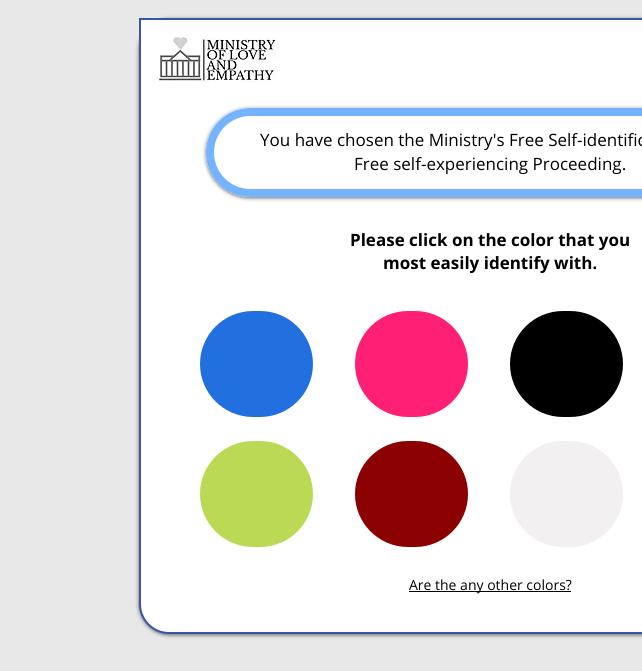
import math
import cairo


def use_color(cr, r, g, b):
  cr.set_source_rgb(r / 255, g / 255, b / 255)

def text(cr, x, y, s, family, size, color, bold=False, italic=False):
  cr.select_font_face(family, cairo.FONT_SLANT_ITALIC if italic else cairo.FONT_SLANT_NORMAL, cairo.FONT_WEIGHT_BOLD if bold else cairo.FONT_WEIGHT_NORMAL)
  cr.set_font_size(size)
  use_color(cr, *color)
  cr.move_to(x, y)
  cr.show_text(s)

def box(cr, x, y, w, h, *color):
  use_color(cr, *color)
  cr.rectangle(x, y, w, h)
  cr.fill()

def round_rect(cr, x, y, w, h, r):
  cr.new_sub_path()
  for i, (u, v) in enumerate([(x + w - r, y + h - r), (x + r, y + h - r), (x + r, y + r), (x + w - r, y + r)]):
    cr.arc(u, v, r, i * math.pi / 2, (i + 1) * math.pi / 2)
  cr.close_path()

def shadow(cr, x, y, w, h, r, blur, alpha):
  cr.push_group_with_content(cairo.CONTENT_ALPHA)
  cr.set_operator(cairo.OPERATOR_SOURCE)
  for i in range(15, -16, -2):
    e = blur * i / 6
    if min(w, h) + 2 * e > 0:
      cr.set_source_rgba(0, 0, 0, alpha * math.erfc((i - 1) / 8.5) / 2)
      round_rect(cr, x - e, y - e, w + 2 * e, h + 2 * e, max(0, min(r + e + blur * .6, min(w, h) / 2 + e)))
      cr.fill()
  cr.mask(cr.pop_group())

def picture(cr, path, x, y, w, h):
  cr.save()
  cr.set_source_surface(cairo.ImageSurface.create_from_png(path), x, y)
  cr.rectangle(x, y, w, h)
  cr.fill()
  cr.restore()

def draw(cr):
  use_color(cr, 232, 232, 232)
  cr.paint()
  use_color(cr, 0, 0, 0)
  shadow(cr, 139, 19, 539, 616, 30, 2, 0.6)
  use_color(cr, 255, 255, 255)
  cr.new_path()
  cr.move_to(140, 19)
  cr.line_to(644, 19)
  cr.curve_to(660, 19, 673, 32, 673, 48)
  cr.line_to(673, 633)
  cr.line_to(169, 633)
  cr.curve_to(153, 633, 140, 620, 140, 604)
  cr.close_path()
  cr.fill_preserve()
  use_color(cr, 55, 86, 171)
  cr.stroke()
  picture(cr, "img_01.png", 157, 34, 120, 48)
  cr.save()
  cr.set_fill_rule(cairo.FILL_RULE_EVEN_ODD)
  cr.new_path()
  cr.move_to(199, 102)
  cr.line_to(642, 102)
  cr.line_to(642, 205)
  cr.line_to(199, 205)
  cr.close_path()
  cr.move_to(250.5, 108)
  cr.line_to(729.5, 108)
  cr.curve_to(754, 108, 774, 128, 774, 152.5)
  cr.curve_to(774, 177, 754, 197, 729.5, 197)
  cr.line_to(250.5, 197)
  cr.curve_to(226, 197, 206, 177, 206, 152.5)
  cr.curve_to(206, 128, 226, 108, 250.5, 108)
  cr.close_path()
  cr.clip()
  use_color(cr, 0, 0, 0)
  shadow(cr, 206, 109, 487, 89, 44.5, 2, 0.6)
  cr.restore()
  cr.set_source_rgba(1, 1, 1, 0.74)
  round_rect(cr, 210, 112, 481, 81, 40.5)
  cr.fill_preserve()
  use_color(cr, 116, 180, 255)
  cr.set_line_width(8)
  cr.stroke()
  use_color(cr, 34, 112, 223)
  round_rect(cr, 200, 311, 113, 106, 53)
  cr.fill()
  use_color(cr, 255, 32, 118)
  round_rect(cr, 355, 311, 113, 106, 53)
  cr.fill()
  use_color(cr, 0, 0, 0)
  round_rect(cr, 510, 311, 113, 106, 53)
  cr.fill()
  use_color(cr, 186, 218, 85)
  round_rect(cr, 200, 441, 113, 106, 53)
  cr.fill()
  use_color(cr, 139, 0, 0)
  round_rect(cr, 355, 441, 113, 106, 53)
  cr.fill()
  use_color(cr, 242, 240, 240)
  round_rect(cr, 510, 441, 113, 106, 53)
  cr.fill()
  box(cr, 409, 591, 162, 1, 0, 0, 0)
  text(cr, 260, 146, "You have chosen the Ministry's Free Self-identific", "Open Sans", 17, (0, 0, 0))
  text(cr, 354, 170, "Free self-experiencing Proceeding.", "Open Sans", 17, (0, 0, 0))
  text(cr, 350, 246, "Please click on the color that you", "Open Sans", 17, (0, 0, 0), bold=True)
  text(cr, 383, 269, "most easily identify with.", "Open Sans", 17, (0, 0, 0), bold=True)
  text(cr, 409, 590, "Are the any other colors?", "Open Sans", 14, (0, 0, 0))


surface = cairo.ImageSurface(cairo.FORMAT_RGB24, 642, 671)
cr = cairo.Context(surface)
options = cairo.FontOptions()
options.set_hint_metrics(cairo.HINT_METRICS_OFF)
options.set_hint_style(cairo.HINT_STYLE_NONE)
cr.set_font_options(options)
cr.set_miter_limit(4)
draw(cr)
surface.write_to_png("out.png")
